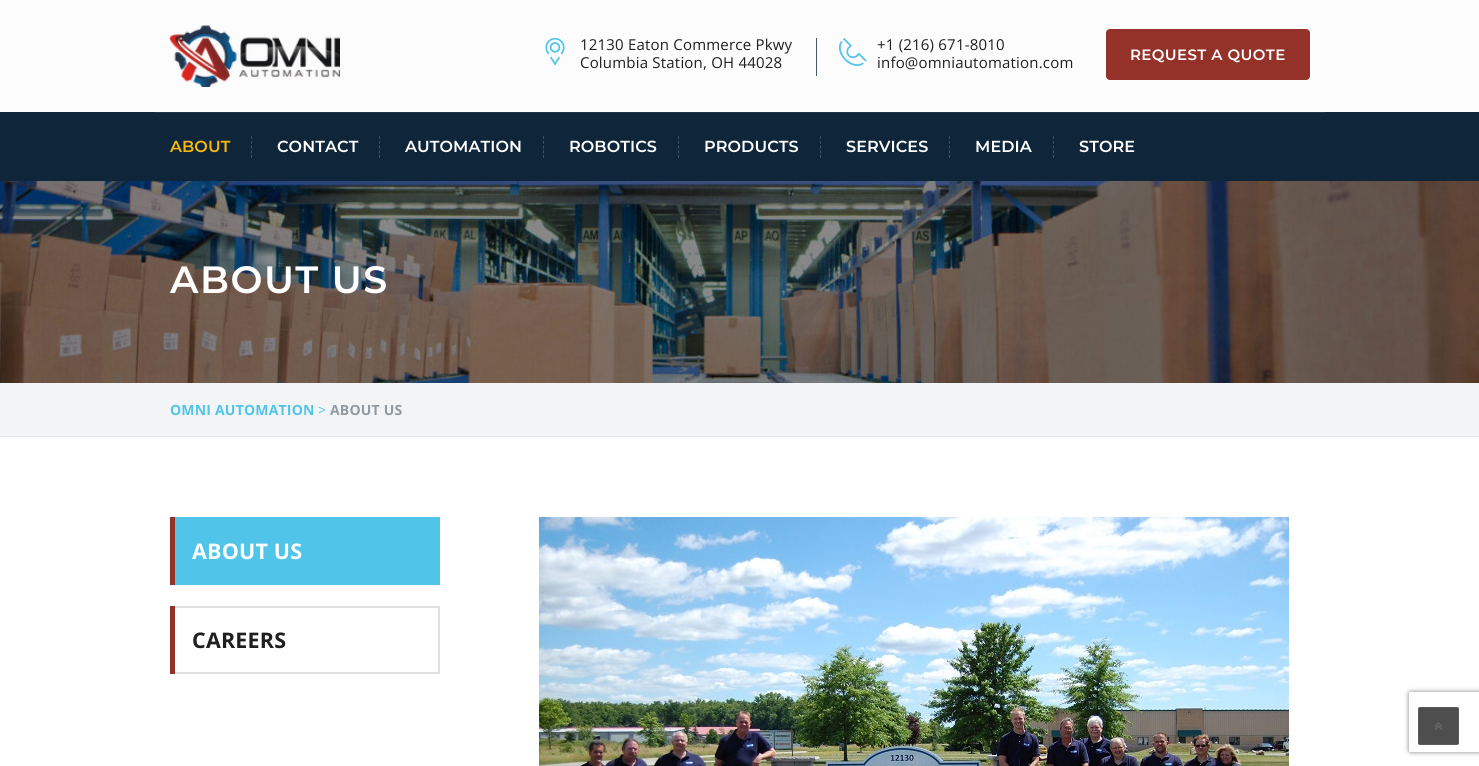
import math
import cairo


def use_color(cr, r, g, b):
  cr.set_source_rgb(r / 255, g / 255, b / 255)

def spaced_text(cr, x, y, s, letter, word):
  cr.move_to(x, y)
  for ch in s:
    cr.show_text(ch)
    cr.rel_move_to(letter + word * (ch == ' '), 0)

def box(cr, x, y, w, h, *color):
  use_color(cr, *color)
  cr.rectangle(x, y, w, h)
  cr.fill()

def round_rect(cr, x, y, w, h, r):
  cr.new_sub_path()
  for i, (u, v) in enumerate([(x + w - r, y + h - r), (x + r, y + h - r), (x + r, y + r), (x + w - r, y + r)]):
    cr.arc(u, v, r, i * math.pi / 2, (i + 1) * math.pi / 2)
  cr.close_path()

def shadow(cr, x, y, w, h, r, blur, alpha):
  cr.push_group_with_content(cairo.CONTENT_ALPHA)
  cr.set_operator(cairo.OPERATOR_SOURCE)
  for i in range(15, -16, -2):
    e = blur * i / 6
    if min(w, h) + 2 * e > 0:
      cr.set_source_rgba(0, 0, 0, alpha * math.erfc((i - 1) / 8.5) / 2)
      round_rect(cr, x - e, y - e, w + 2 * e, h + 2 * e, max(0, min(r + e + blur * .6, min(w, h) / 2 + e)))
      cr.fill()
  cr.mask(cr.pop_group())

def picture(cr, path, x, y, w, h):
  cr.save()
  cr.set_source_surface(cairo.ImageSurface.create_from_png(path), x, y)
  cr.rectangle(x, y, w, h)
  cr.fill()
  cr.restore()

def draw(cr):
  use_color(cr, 255, 255, 255)
  cr.paint()
  box(cr, 0, 0, 1479, 112, 252, 252, 252)
  picture(cr, "img_01.png", 170, 25, 170, 62)
  box(cr, 816, 38, 1, 38, 72, 86, 98)
  picture(cr, "img_02.png", 545, 38, 20, 28)
  picture(cr, "img_03.png", 839, 38, 28, 28)
  use_color(cr, 148, 49, 40)
  round_rect(cr, 1106.5, 29.5, 203, 50, 3.5)
  cr.fill_preserve()
  cr.set_line_width(1)
  cr.stroke()
  box(cr, 0, 112, 1479, 69, 15, 38, 58)
  box(cr, 155, 112, 1170, 1, 27, 54, 76)
  cr.new_path()
  cr.move_to(251.5, 136)
  cr.line_to(251.5, 158)
  use_color(cr, 63, 82, 98)
  cr.set_dash([3, 1.75])
  cr.stroke()
  cr.new_path()
  cr.move_to(379.5, 136)
  cr.line_to(379.5, 158)
  cr.stroke()
  cr.new_path()
  cr.move_to(543.5, 136)
  cr.line_to(543.5, 158)
  cr.stroke()
  cr.new_path()
  cr.move_to(678.5, 136)
  cr.line_to(678.5, 158)
  cr.stroke()
  cr.new_path()
  cr.move_to(820.5, 136)
  cr.line_to(820.5, 158)
  cr.stroke()
  cr.new_path()
  cr.move_to(949.5, 136)
  cr.line_to(949.5, 158)
  cr.stroke()
  cr.new_path()
  cr.move_to(1053.5, 136)
  cr.line_to(1053.5, 158)
  cr.stroke()
  picture(cr, "img_04.png", 0, 181, 1479, 202)
  box(cr, 0, 383, 1479, 53, 242, 244, 246)
  box(cr, 0, 436, 1479, 1, 230, 232, 233)
  box(cr, 175, 517, 265, 68, 81, 197, 233)
  box(cr, 170, 517, 5, 68, 148, 49, 40)
  cr.save()
  cr.rectangle(170, 517, 270, 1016)
  cr.clip()
  cr.rectangle(170, 607, 269, 66)
  use_color(cr, 224, 224, 224)
  cr.set_line_width(2)
  cr.set_dash([])
  cr.stroke()
  cr.restore()
  box(cr, 170, 606, 5, 68, 148, 49, 40)
  picture(cr, "img_05.png", 539, 517, 750, 249)
  cr.save()
  cr.set_fill_rule(cairo.FILL_RULE_EVEN_ODD)
  cr.new_path()
  cr.move_to(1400, 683)
  cr.line_to(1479, 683)
  cr.line_to(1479, 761)
  cr.line_to(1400, 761)
  cr.close_path()
  cr.move_to(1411, 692)
  cr.line_to(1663, 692)
  cr.curve_to(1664, 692, 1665, 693, 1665, 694)
  cr.line_to(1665, 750)
  cr.curve_to(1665, 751, 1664, 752, 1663, 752)
  cr.line_to(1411, 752)
  cr.curve_to(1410, 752, 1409, 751, 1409, 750)
  cr.line_to(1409, 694)
  cr.curve_to(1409, 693, 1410, 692, 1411, 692)
  cr.close_path()
  cr.clip()
  use_color(cr, 128, 128, 128)
  shadow(cr, 1409, 692, 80, 60, 2, 2.5, 1)
  cr.restore()
  use_color(cr, 78, 78, 78)
  round_rect(cr, 1418.5, 707.5, 40, 37, 1.5)
  cr.fill_preserve()
  use_color(cr, 92, 92, 92)
  cr.set_dash([])
  cr.stroke()
  picture(cr, "img_06.png", 1434, 722, 9, 8)
  cr.select_font_face("Open Sans")
  cr.set_font_size(15)
  use_color(cr, 31, 31, 31)
  spaced_text(cr, 580, 50, "12130 Eaton Commerce Pkwy", 0.2, 0)
  spaced_text(cr, 580, 68, "Columbia Station, OH 44028", 0.2, 0)
  spaced_text(cr, 877, 50, "+1 (216) 671-8010", 0.2, 0)
  spaced_text(cr, 877, 68, "info@omniautomation.com", 0.2, 0)
  cr.select_font_face("Montserrat SemiBold")
  use_color(cr, 255, 255, 255)
  spaced_text(cr, 1130, 60, "REQUEST A QUOTE", 0.4, 0)
  cr.set_font_size(16)
  use_color(cr, 250, 185, 10)
  spaced_text(cr, 170, 152, "ABOUT", 0.1, 0)
  use_color(cr, 255, 255, 255)
  spaced_text(cr, 277, 152, "CONTACT", 0.1, 0)
  spaced_text(cr, 405, 152, "AUTOMATION", 0.1, 0)
  spaced_text(cr, 569, 152, "ROBOTICS", 0.1, 0)
  spaced_text(cr, 704, 152, "PRODUCTS", 0.1, 0)
  spaced_text(cr, 846, 152, "SERVICES", 0.1, 0)
  spaced_text(cr, 975, 152, "MEDIA", 0.1, 0)
  spaced_text(cr, 1079, 152, "STORE", 0.1, 0)
  cr.set_font_size(38)
  spaced_text(cr, 170, 293, "ABOUT US", 1.5, 0)
  cr.select_font_face("Open Sans", cairo.FONT_SLANT_NORMAL, cairo.FONT_WEIGHT_BOLD)
  cr.set_font_size(14)
  use_color(cr, 81, 197, 233)
  spaced_text(cr, 170, 415, "OMNI AUTOMATION", 0.2, 0)
  cr.select_font_face("Open Sans")
  spaced_text(cr, 318, 415, ">", 0.2, 0)
  cr.select_font_face("Open Sans", cairo.FONT_SLANT_NORMAL, cairo.FONT_WEIGHT_BOLD)
  use_color(cr, 144, 154, 162)
  spaced_text(cr, 330, 415, "ABOUT US", 0.2, 0)
  cr.set_font_size(21.5)
  use_color(cr, 255, 255, 255)
  spaced_text(cr, 192, 559, "ABOUT US", 0.2, 0)
  use_color(cr, 31, 31, 31)
  spaced_text(cr, 192, 648, "CAREERS", 0.2, 0)


surface = cairo.ImageSurface(cairo.FORMAT_RGB24, 1479, 766)
cr = cairo.Context(surface)
options = cairo.FontOptions()
options.set_hint_metrics(cairo.HINT_METRICS_OFF)
options.set_hint_style(cairo.HINT_STYLE_NONE)
cr.set_font_options(options)
cr.set_miter_limit(4)
draw(cr)
surface.write_to_png("out.png")
